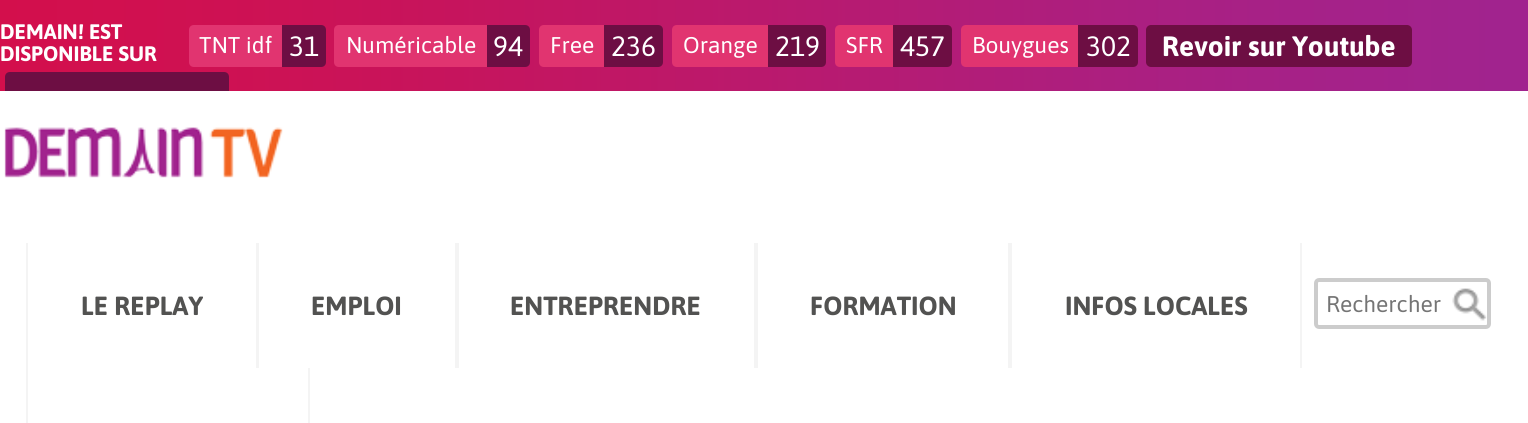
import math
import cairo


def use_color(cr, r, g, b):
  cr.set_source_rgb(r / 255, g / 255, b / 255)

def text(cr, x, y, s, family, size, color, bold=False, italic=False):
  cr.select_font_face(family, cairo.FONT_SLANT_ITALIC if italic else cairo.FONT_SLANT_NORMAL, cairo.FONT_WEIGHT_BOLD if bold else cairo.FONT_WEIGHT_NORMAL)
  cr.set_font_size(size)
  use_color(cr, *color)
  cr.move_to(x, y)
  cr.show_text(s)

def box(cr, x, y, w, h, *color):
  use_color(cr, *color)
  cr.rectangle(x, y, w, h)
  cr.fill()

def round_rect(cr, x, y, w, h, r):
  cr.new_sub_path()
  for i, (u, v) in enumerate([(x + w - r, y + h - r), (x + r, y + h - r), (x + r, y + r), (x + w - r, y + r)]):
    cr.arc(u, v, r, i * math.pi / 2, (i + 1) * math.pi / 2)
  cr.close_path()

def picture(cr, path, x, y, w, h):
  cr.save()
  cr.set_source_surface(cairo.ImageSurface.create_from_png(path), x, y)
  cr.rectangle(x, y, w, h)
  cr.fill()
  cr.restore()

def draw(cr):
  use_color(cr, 255, 255, 255)
  cr.paint()
  picture(cr, "img_01.png", 0, 0, 1528, 91)
  use_color(cr, 225, 52, 112)
  cr.new_path()
  cr.move_to(194, 25)
  cr.line_to(282, 25)
  cr.line_to(282, 67)
  cr.line_to(194, 67)
  cr.curve_to(191, 67, 189, 65, 189, 62)
  cr.line_to(189, 30)
  cr.curve_to(189, 27, 191, 25, 194, 25)
  cr.close_path()
  cr.fill()
  use_color(cr, 109, 14, 67)
  cr.new_path()
  cr.move_to(282, 25)
  cr.line_to(321, 25)
  cr.curve_to(324, 25, 326, 27, 326, 30)
  cr.line_to(326, 62)
  cr.curve_to(326, 65, 324, 67, 321, 67)
  cr.line_to(282, 67)
  cr.close_path()
  cr.fill()
  use_color(cr, 225, 52, 112)
  cr.new_path()
  cr.move_to(339, 25)
  cr.line_to(487, 25)
  cr.line_to(487, 67)
  cr.line_to(339, 67)
  cr.curve_to(336, 67, 334, 65, 334, 62)
  cr.line_to(334, 30)
  cr.curve_to(334, 27, 336, 25, 339, 25)
  cr.close_path()
  cr.fill()
  use_color(cr, 109, 14, 67)
  cr.new_path()
  cr.move_to(487, 25)
  cr.line_to(525, 25)
  cr.curve_to(528, 25, 530, 27, 530, 30)
  cr.line_to(530, 62)
  cr.curve_to(530, 65, 528, 67, 525, 67)
  cr.line_to(487, 67)
  cr.close_path()
  cr.fill()
  use_color(cr, 225, 52, 112)
  cr.new_path()
  cr.move_to(544, 25)
  cr.line_to(604, 25)
  cr.line_to(604, 67)
  cr.line_to(544, 67)
  cr.curve_to(541, 67, 539, 65, 539, 62)
  cr.line_to(539, 30)
  cr.curve_to(539, 27, 541, 25, 544, 25)
  cr.close_path()
  cr.fill()
  use_color(cr, 109, 14, 67)
  cr.new_path()
  cr.move_to(604, 25)
  cr.line_to(658, 25)
  cr.curve_to(661, 25, 663, 27, 663, 30)
  cr.line_to(663, 62)
  cr.curve_to(663, 65, 661, 67, 658, 67)
  cr.line_to(604, 67)
  cr.close_path()
  cr.fill()
  use_color(cr, 225, 52, 112)
  cr.new_path()
  cr.move_to(677, 25)
  cr.line_to(768, 25)
  cr.line_to(768, 67)
  cr.line_to(677, 67)
  cr.curve_to(674, 67, 672, 65, 672, 62)
  cr.line_to(672, 30)
  cr.curve_to(672, 27, 674, 25, 677, 25)
  cr.close_path()
  cr.fill()
  use_color(cr, 109, 14, 67)
  cr.new_path()
  cr.move_to(768, 25)
  cr.line_to(821, 25)
  cr.curve_to(824, 25, 826, 27, 826, 30)
  cr.line_to(826, 62)
  cr.curve_to(826, 65, 824, 67, 821, 67)
  cr.line_to(768, 67)
  cr.close_path()
  cr.fill()
  use_color(cr, 225, 52, 112)
  cr.new_path()
  cr.move_to(840, 25)
  cr.line_to(893, 25)
  cr.line_to(893, 67)
  cr.line_to(840, 67)
  cr.curve_to(837, 67, 835, 65, 835, 62)
  cr.line_to(835, 30)
  cr.curve_to(835, 27, 837, 25, 840, 25)
  cr.close_path()
  cr.fill()
  use_color(cr, 109, 14, 67)
  cr.new_path()
  cr.move_to(893, 25)
  cr.line_to(947, 25)
  cr.curve_to(950, 25, 952, 27, 952, 30)
  cr.line_to(952, 62)
  cr.curve_to(952, 65, 950, 67, 947, 67)
  cr.line_to(893, 67)
  cr.close_path()
  cr.fill()
  use_color(cr, 225, 52, 112)
  cr.new_path()
  cr.move_to(966, 25)
  cr.line_to(1078, 25)
  cr.line_to(1078, 67)
  cr.line_to(966, 67)
  cr.curve_to(963, 67, 961, 65, 961, 62)
  cr.line_to(961, 30)
  cr.curve_to(961, 27, 963, 25, 966, 25)
  cr.close_path()
  cr.fill()
  use_color(cr, 109, 14, 67)
  cr.new_path()
  cr.move_to(1078, 25)
  cr.line_to(1133, 25)
  cr.curve_to(1136, 25, 1138, 27, 1138, 30)
  cr.line_to(1138, 62)
  cr.curve_to(1138, 65, 1136, 67, 1133, 67)
  cr.line_to(1078, 67)
  cr.close_path()
  cr.fill()
  round_rect(cr, 1146, 25, 266, 42, 5)
  cr.fill()
  cr.new_path()
  cr.move_to(10, 72)
  cr.line_to(224, 72)
  cr.curve_to(227, 72, 229, 74, 229, 77)
  cr.line_to(229, 91)
  cr.line_to(5, 91)
  cr.line_to(5, 77)
  cr.curve_to(5, 74, 7, 72, 10, 72)
  cr.close_path()
  cr.fill()
  picture(cr, "img_02.png", 4, 127, 279, 51)
  box(cr, 256, 243, 3, 125, 244, 244, 244)
  box(cr, 26, 243, 2, 180, 244, 244, 244)
  box(cr, 455, 243, 4, 125, 244, 244, 244)
  box(cr, 754, 243, 4, 125, 244, 244, 244)
  box(cr, 1008, 243, 4, 125, 244, 244, 244)
  box(cr, 1300, 243, 2, 125, 244, 244, 244)
  box(cr, 308, 368, 2, 55, 244, 244, 244)
  picture(cr, "img_03.png", 1452, 288, 35, 33)
  round_rect(cr, 1316, 280, 173, 47, 3)
  use_color(cr, 204, 204, 204)
  cr.set_line_width(4)
  cr.stroke()
  text(cr, 0, 39, "DEMAIN! EST", "Asap", 21, (255, 255, 255), bold=True)
  text(cr, 0, 61, "DISPONIBLE SUR", "Asap", 21, (255, 255, 255), bold=True)
  text(cr, 199, 53, "TNT idf", "Asap", 22.75, (255, 255, 255))
  text(cr, 289, 56, "31", "Asap", 28, (255, 255, 255))
  text(cr, 346, 53, "Numéricable", "Asap", 22.75, (255, 255, 255))
  text(cr, 493, 56, "94", "Asap", 28, (255, 255, 255))
  text(cr, 550, 53, "Free", "Asap", 22.75, (255, 255, 255))
  text(cr, 611, 56, "236", "Asap", 28, (255, 255, 255))
  text(cr, 683, 53, "Orange", "Asap", 22.75, (255, 255, 255))
  text(cr, 775, 56, "219", "Asap", 28, (255, 255, 255))
  text(cr, 846, 53, "SFR", "Asap", 22.75, (255, 255, 255))
  text(cr, 900, 56, "457", "Asap", 28, (255, 255, 255))
  text(cr, 972, 53, "Bouygues", "Asap", 22.75, (255, 255, 255))
  text(cr, 1086, 56, "302", "Asap", 28, (255, 255, 255))
  text(cr, 1162, 56, "Revoir sur Youtube", "Asap", 28, (255, 255, 255), bold=True)
  text(cr, 81, 315, "LE REPLAY", "Asap", 26.25, (82, 82, 81), bold=True)
  text(cr, 311, 315, "EMPLOI", "Asap", 26.25, (82, 82, 81), bold=True)
  text(cr, 510, 315, "ENTREPRENDRE", "Asap", 26.25, (82, 82, 81), bold=True)
  text(cr, 810, 315, "FORMATION", "Asap", 26.25, (82, 82, 81), bold=True)
  text(cr, 1065, 315, "INFOS LOCALES", "Asap", 26.25, (82, 82, 81), bold=True)
  text(cr, 1326, 312, "Rechercher", "Asap", 22.75, (117, 117, 117))


surface = cairo.ImageSurface(cairo.FORMAT_RGB24, 1528, 423)
cr = cairo.Context(surface)
options = cairo.FontOptions()
options.set_hint_metrics(cairo.HINT_METRICS_OFF)
options.set_hint_style(cairo.HINT_STYLE_NONE)
cr.set_font_options(options)
cr.set_miter_limit(4)
draw(cr)
surface.write_to_png("out.png")
